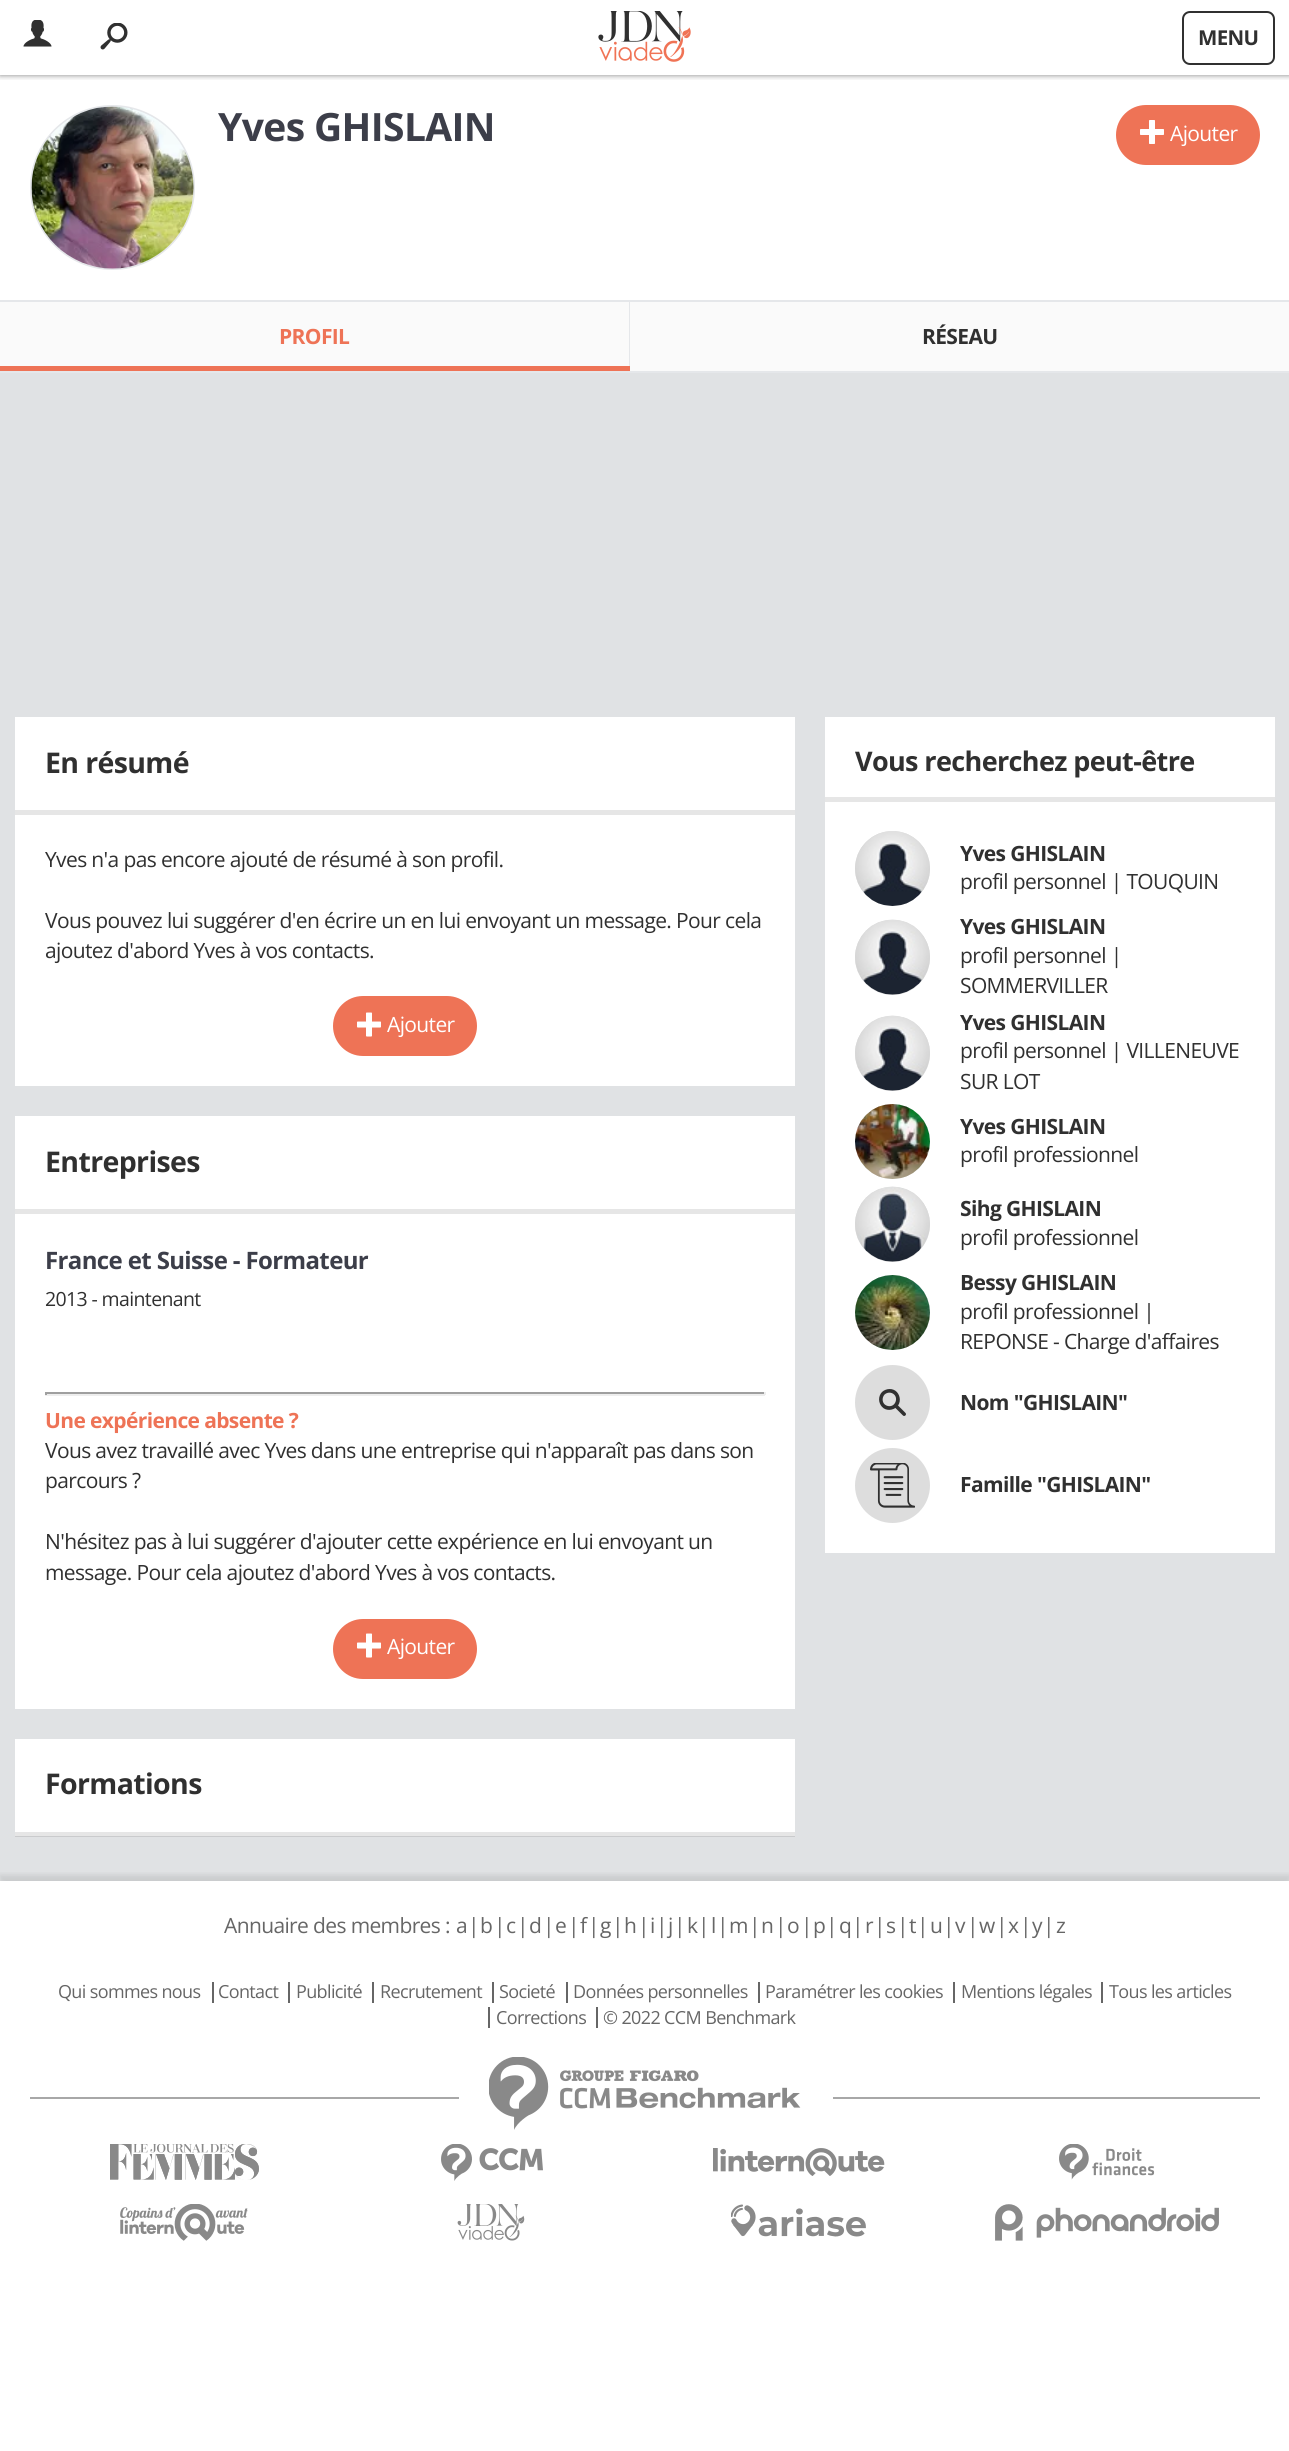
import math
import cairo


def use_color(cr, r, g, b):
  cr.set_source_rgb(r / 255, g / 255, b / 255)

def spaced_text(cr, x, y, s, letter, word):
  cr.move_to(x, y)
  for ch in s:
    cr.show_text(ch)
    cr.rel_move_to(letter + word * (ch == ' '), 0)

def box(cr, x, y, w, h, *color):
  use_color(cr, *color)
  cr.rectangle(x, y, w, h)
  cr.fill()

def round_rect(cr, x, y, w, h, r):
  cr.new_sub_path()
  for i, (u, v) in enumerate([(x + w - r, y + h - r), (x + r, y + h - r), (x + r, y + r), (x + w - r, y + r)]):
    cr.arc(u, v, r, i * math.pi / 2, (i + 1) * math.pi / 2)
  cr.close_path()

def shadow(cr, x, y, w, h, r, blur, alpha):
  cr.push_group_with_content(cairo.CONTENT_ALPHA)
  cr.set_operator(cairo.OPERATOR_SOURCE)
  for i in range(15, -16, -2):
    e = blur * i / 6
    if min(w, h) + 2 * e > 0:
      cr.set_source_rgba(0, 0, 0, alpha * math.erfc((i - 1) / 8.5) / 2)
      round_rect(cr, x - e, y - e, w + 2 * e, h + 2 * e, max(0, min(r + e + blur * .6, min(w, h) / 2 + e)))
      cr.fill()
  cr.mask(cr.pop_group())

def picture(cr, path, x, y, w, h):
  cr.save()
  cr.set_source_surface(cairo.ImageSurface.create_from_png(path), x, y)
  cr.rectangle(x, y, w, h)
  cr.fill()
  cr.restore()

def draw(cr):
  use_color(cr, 255, 255, 255)
  cr.paint()
  cr.save()
  cr.rectangle(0, 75, 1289, 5)
  cr.clip()
  use_color(cr, 0, 0, 0)
  shadow(cr, 0, 0, 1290, 75, 0, 3, 0.5)
  cr.restore()
  picture(cr, "img_01.png", 598, 11, 93, 51)
  picture(cr, "img_02.png", 23, 20, 29, 27)
  picture(cr, "img_03.png", 100, 23, 28, 27)
  round_rect(cr, 1183, 12, 91, 52, 7)
  use_color(cr, 48, 48, 48)
  cr.stroke()
  cr.arc(112.5, 187.5, 81.5, 0, 2 * math.pi)
  use_color(cr, 229, 231, 234)
  cr.stroke()
  picture(cr, "img_04.png", 31, 106, 163, 163)
  use_color(cr, 238, 115, 86)
  round_rect(cr, 1116, 105, 144, 60, 30)
  cr.fill()
  picture(cr, "img_05.png", 1140, 120, 24, 24)
  box(cr, 0, 300, 1289, 2, 229, 231, 234)
  box(cr, 0, 371, 1289, 2, 229, 231, 234)
  box(cr, 0, 302, 629, 64, 250, 250, 250)
  box(cr, 629, 302, 1, 69, 229, 231, 234)
  box(cr, 0, 366, 630, 5, 238, 115, 86)
  box(cr, 630, 302, 659, 69, 250, 250, 250)
  box(cr, 0, 373, 1289, 1508, 224, 226, 228)
  box(cr, 15, 1836, 780, 1, 202, 203, 205)
  box(cr, 15, 717, 780, 369, 255, 255, 255)
  box(cr, 15, 810, 780, 5, 230, 230, 230)
  use_color(cr, 238, 115, 86)
  round_rect(cr, 333, 996, 144, 60, 30)
  cr.fill()
  picture(cr, "img_06.png", 357, 1012, 24, 25)
  box(cr, 15, 1116, 780, 593, 255, 255, 255)
  box(cr, 15, 1209, 780, 5, 230, 230, 230)
  box(cr, 45, 1392, 720, 2, 159, 159, 159)
  box(cr, 764, 1392, 2, 3, 238, 238, 238)
  box(cr, 45, 1394, 720, 2, 238, 238, 238)
  box(cr, 45, 1392, 2, 3, 159, 159, 159)
  use_color(cr, 238, 115, 86)
  round_rect(cr, 333, 1619, 144, 60, 30)
  cr.fill()
  picture(cr, "img_06.png", 357, 1633, 24, 25)
  box(cr, 15, 1739, 780, 93, 255, 255, 255)
  box(cr, 15, 1832, 780, 4, 230, 230, 230)
  box(cr, 825, 717, 450, 836, 255, 255, 255)
  box(cr, 825, 797, 450, 5, 230, 230, 230)
  use_color(cr, 221, 221, 221)
  cr.arc(892.5, 868.5, 37.5, 0, 2 * math.pi)
  cr.fill()
  picture(cr, "img_07.png", 855, 831, 75, 75)
  cr.arc(892.5, 957.5, 37.5, 0, 2 * math.pi)
  cr.fill()
  picture(cr, "img_08.png", 855, 919, 75, 76)
  cr.arc(892.5, 1053.5, 37.5, 0, 2 * math.pi)
  cr.fill()
  picture(cr, "img_09.png", 855, 1015, 75, 76)
  cr.arc(892.5, 1141.5, 37.5, 0, 2 * math.pi)
  cr.fill()
  picture(cr, "img_10.png", 855, 1104, 75, 75)
  cr.arc(892.5, 1224.5, 37.5, 0, 2 * math.pi)
  cr.fill()
  picture(cr, "img_11.png", 855, 1186, 75, 76)
  cr.arc(892.5, 1312.5, 37.5, 0, 2 * math.pi)
  cr.fill()
  picture(cr, "img_12.png", 855, 1275, 75, 75)
  cr.arc(892.5, 1402.5, 37.5, 0, 2 * math.pi)
  cr.fill()
  picture(cr, "img_13.png", 879, 1389, 27, 27)
  cr.arc(892.5, 1485.5, 37.5, 0, 2 * math.pi)
  cr.fill()
  picture(cr, "img_14.png", 870, 1463, 45, 45)
  cr.save()
  cr.rectangle(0, 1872, 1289, 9)
  cr.clip()
  use_color(cr, 0, 0, 0)
  shadow(cr, 0, 1875, 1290, 68, 0, 3, 0.1)
  cr.restore()
  box(cr, 212, 1982, 2, 21, 102, 102, 102)
  box(cr, 288, 1982, 2, 21, 102, 102, 102)
  box(cr, 372, 1982, 2, 21, 102, 102, 102)
  box(cr, 492, 1982, 2, 21, 102, 102, 102)
  box(cr, 566, 1982, 2, 21, 102, 102, 102)
  box(cr, 758, 1982, 2, 21, 102, 102, 102)
  box(cr, 953, 1982, 2, 21, 102, 102, 102)
  box(cr, 1101, 1982, 2, 21, 102, 102, 102)
  box(cr, 488, 2007, 2, 21, 102, 102, 102)
  box(cr, 596, 2007, 2, 21, 102, 102, 102)
  box(cr, 30, 2097, 1230, 2, 168, 168, 168)
  box(cr, 459, 2097, 374, 2, 255, 255, 255)
  picture(cr, "img_15.png", 489, 2057, 312, 73)
  picture(cr, "img_16.png", 110, 2144, 149, 36)
  picture(cr, "img_17.png", 441, 2144, 102, 37)
  picture(cr, "img_18.png", 713, 2148, 172, 28)
  picture(cr, "img_19.png", 1059, 2144, 96, 36)
  picture(cr, "img_20.png", 120, 2204, 128, 37)
  picture(cr, "img_21.png", 457, 2204, 68, 37)
  picture(cr, "img_22.png", 731, 2204, 135, 33)
  picture(cr, "img_23.png", 995, 2204, 224, 37)
  cr.select_font_face("Open Sans", cairo.FONT_SLANT_NORMAL, cairo.FONT_WEIGHT_BOLD)
  cr.set_font_size(20.5)
  use_color(cr, 48, 48, 48)
  spaced_text(cr, 1198, 45, "MENU", -0.63, 0)
  cr.set_font_size(39)
  use_color(cr, 60, 62, 73)
  spaced_text(cr, 218, 141, "Yves GHISLAIN", -0.63, 0)
  cr.select_font_face("Open Sans")
  cr.set_font_size(21)
  use_color(cr, 255, 255, 255)
  spaced_text(cr, 1170, 141, "Ajouter", -0.63, 0)
  cr.select_font_face("Open Sans", cairo.FONT_SLANT_NORMAL, cairo.FONT_WEIGHT_BOLD)
  use_color(cr, 238, 115, 86)
  spaced_text(cr, 279, 344, "PROFIL", -0.63, 0)
  use_color(cr, 48, 48, 48)
  spaced_text(cr, 922, 344, "RÉSEAU", -0.63, 0)
  cr.set_font_size(28.5)
  spaced_text(cr, 45, 773, "En résumé", -0.63, 0)
  cr.select_font_face("Open Sans")
  cr.set_font_size(21)
  spaced_text(cr, 45, 867, "Yves n'a pas encore ajouté de résumé à son profil.", -0.63, 0)
  spaced_text(cr, 45, 928, "Vous pouvez lui suggérer d'en écrire un en lui envoyant un message. Pour cela", -0.63, 0)
  spaced_text(cr, 45, 958, "ajoutez d'abord Yves à vos contacts.", -0.63, 0)
  use_color(cr, 255, 255, 255)
  spaced_text(cr, 387, 1032, "Ajouter", -0.63, 0)
  cr.select_font_face("Open Sans", cairo.FONT_SLANT_NORMAL, cairo.FONT_WEIGHT_BOLD)
  cr.set_font_size(28.5)
  use_color(cr, 48, 48, 48)
  spaced_text(cr, 45, 1172, "Entreprises", -0.63, 0)
  cr.set_font_size(24)
  use_color(cr, 60, 62, 73)
  spaced_text(cr, 45, 1269, "France et Suisse - Formateur", -0.63, 0)
  cr.select_font_face("Open Sans")
  cr.set_font_size(19.5)
  use_color(cr, 48, 48, 48)
  spaced_text(cr, 45, 1306, "2013 - maintenant", -0.63, 0)
  cr.select_font_face("Open Sans", cairo.FONT_SLANT_NORMAL, cairo.FONT_WEIGHT_BOLD)
  cr.set_font_size(21)
  use_color(cr, 238, 115, 86)
  spaced_text(cr, 45, 1428, "Une expérience absente ?", -0.63, 0)
  cr.select_font_face("Open Sans")
  use_color(cr, 48, 48, 48)
  spaced_text(cr, 45, 1458, "Vous avez travaillé avec Yves dans une entreprise qui n'apparaît pas dans son", -0.63, 0)
  spaced_text(cr, 45, 1488, "parcours ?", -0.63, 0)
  spaced_text(cr, 45, 1549, "N'hésitez pas à lui suggérer d'ajouter cette expérience en lui envoyant un", -0.63, 0)
  spaced_text(cr, 45, 1580, "message. Pour cela ajoutez d'abord Yves à vos contacts.", -0.63, 0)
  use_color(cr, 255, 255, 255)
  spaced_text(cr, 387, 1654, "Ajouter", -0.63, 0)
  cr.select_font_face("Open Sans", cairo.FONT_SLANT_NORMAL, cairo.FONT_WEIGHT_BOLD)
  cr.set_font_size(28.5)
  use_color(cr, 48, 48, 48)
  spaced_text(cr, 45, 1794, "Formations", -0.63, 0)
  cr.set_font_size(27)
  spaced_text(cr, 855, 771, "Vous recherchez peut-être", -0.63, 0)
  cr.set_font_size(21)
  spaced_text(cr, 960, 861, "Yves GHISLAIN", -0.63, 0)
  cr.select_font_face("Open Sans")
  spaced_text(cr, 960, 889, "profil personnel | TOUQUIN", -0.63, 0)
  cr.select_font_face("Open Sans", cairo.FONT_SLANT_NORMAL, cairo.FONT_WEIGHT_BOLD)
  spaced_text(cr, 960, 934, "Yves GHISLAIN", -0.63, 0)
  cr.select_font_face("Open Sans")
  spaced_text(cr, 960, 963, "profil personnel |", -0.63, 0)
  spaced_text(cr, 960, 993, "SOMMERVILLER", -0.63, 0)
  cr.select_font_face("Open Sans", cairo.FONT_SLANT_NORMAL, cairo.FONT_WEIGHT_BOLD)
  spaced_text(cr, 960, 1030, "Yves GHISLAIN", -0.63, 0)
  cr.select_font_face("Open Sans")
  spaced_text(cr, 960, 1058, "profil personnel | VILLENEUVE", -0.63, 0)
  spaced_text(cr, 960, 1089, "SUR LOT", -0.63, 0)
  cr.select_font_face("Open Sans", cairo.FONT_SLANT_NORMAL, cairo.FONT_WEIGHT_BOLD)
  spaced_text(cr, 960, 1134, "Yves GHISLAIN", -0.63, 0)
  cr.select_font_face("Open Sans")
  spaced_text(cr, 960, 1162, "profil professionnel", -0.63, 0)
  cr.select_font_face("Open Sans", cairo.FONT_SLANT_NORMAL, cairo.FONT_WEIGHT_BOLD)
  spaced_text(cr, 960, 1216, "Sihg GHISLAIN", -0.63, 0)
  cr.select_font_face("Open Sans")
  spaced_text(cr, 960, 1245, "profil professionnel", -0.63, 0)
  cr.select_font_face("Open Sans", cairo.FONT_SLANT_NORMAL, cairo.FONT_WEIGHT_BOLD)
  spaced_text(cr, 960, 1290, "Bessy GHISLAIN", -0.63, 0)
  cr.select_font_face("Open Sans")
  spaced_text(cr, 960, 1319, "profil professionnel |", -0.63, 0)
  spaced_text(cr, 960, 1349, "REPONSE - Charge d'affaires", -0.63, 0)
  cr.select_font_face("Open Sans", cairo.FONT_SLANT_NORMAL, cairo.FONT_WEIGHT_BOLD)
  spaced_text(cr, 960, 1410, "Nom \"GHISLAIN\"", -0.63, 0)
  spaced_text(cr, 960, 1492, "Famille \"GHISLAIN\"", -0.63, 0)
  cr.select_font_face("Open Sans")
  use_color(cr, 102, 102, 102)
  spaced_text(cr, 224, 1933, "Annuaire des membres :", -0.63, 0)
  spaced_text(cr, 456, 1933, "a", -0.63, 0)
  spaced_text(cr, 468, 1933, "|", -0.63, 0)
  spaced_text(cr, 480, 1933, "b", -0.63, 0)
  spaced_text(cr, 494, 1933, "|", -0.63, 0)
  spaced_text(cr, 506, 1933, "c", -0.63, 0)
  spaced_text(cr, 517, 1933, "|", -0.63, 0)
  spaced_text(cr, 529, 1933, "d", -0.63, 0)
  spaced_text(cr, 543, 1933, "|", -0.63, 0)
  spaced_text(cr, 555, 1933, "e", -0.63, 0)
  spaced_text(cr, 568, 1933, "|", -0.63, 0)
  spaced_text(cr, 580, 1933, "f", -0.63, 0)
  spaced_text(cr, 588, 1933, "|", -0.63, 0)
  spaced_text(cr, 600, 1933, "g", -0.63, 0)
  spaced_text(cr, 612, 1933, "|", -0.63, 0)
  spaced_text(cr, 624, 1933, "h", -0.63, 0)
  spaced_text(cr, 638, 1933, "|", -0.63, 0)
  spaced_text(cr, 650, 1933, "i", -0.63, 0)
  spaced_text(cr, 656, 1933, "|", -0.63, 0)
  spaced_text(cr, 668, 1933, "j", -0.63, 0)
  spaced_text(cr, 674, 1933, "|", -0.63, 0)
  spaced_text(cr, 687, 1933, "k", -0.63, 0)
  spaced_text(cr, 698, 1933, "|", -0.63, 0)
  spaced_text(cr, 711, 1933, "l", -0.63, 0)
  spaced_text(cr, 717, 1933, "|", -0.63, 0)
  spaced_text(cr, 729, 1933, "m", -0.63, 0)
  spaced_text(cr, 749, 1933, "|", -0.63, 0)
  spaced_text(cr, 761, 1933, "n", -0.63, 0)
  spaced_text(cr, 775, 1933, "|", -0.63, 0)
  spaced_text(cr, 787, 1933, "o", -0.63, 0)
  spaced_text(cr, 801, 1933, "|", -0.63, 0)
  spaced_text(cr, 813, 1933, "p", -0.63, 0)
  spaced_text(cr, 826, 1933, "|", -0.63, 0)
  spaced_text(cr, 839, 1933, "q", -0.63, 0)
  spaced_text(cr, 852, 1933, "|", -0.63, 0)
  spaced_text(cr, 865, 1933, "r", -0.63, 0)
  spaced_text(cr, 874, 1933, "|", -0.63, 0)
  spaced_text(cr, 886, 1933, "s", -0.63, 0)
  spaced_text(cr, 897, 1933, "|", -0.63, 0)
  spaced_text(cr, 909, 1933, "t", -0.63, 0)
  spaced_text(cr, 917, 1933, "|", -0.63, 0)
  spaced_text(cr, 930, 1933, "u", -0.63, 0)
  spaced_text(cr, 943, 1933, "|", -0.63, 0)
  spaced_text(cr, 955, 1933, "v", -0.63, 0)
  spaced_text(cr, 967, 1933, "|", -0.63, 0)
  spaced_text(cr, 979, 1933, "w", -0.63, 0)
  spaced_text(cr, 996, 1933, "|", -0.63, 0)
  spaced_text(cr, 1008, 1933, "x", -0.63, 0)
  spaced_text(cr, 1020, 1933, "|", -0.63, 0)
  spaced_text(cr, 1032, 1933, "y", -0.63, 0)
  spaced_text(cr, 1043, 1933, "|", -0.63, 0)
  spaced_text(cr, 1056, 1933, "z", -0.63, 0)
  cr.set_font_size(18)
  spaced_text(cr, 58, 1998, "Qui sommes nous", -0.63, 0)
  spaced_text(cr, 218, 1998, "Contact", -0.63, 0)
  spaced_text(cr, 296, 1998, "Publicité", -0.63, 0)
  spaced_text(cr, 380, 1998, "Recrutement", -0.63, 0)
  spaced_text(cr, 499, 1998, "Societé", -0.63, 0)
  spaced_text(cr, 573, 1998, "Données personnelles", -0.63, 0)
  spaced_text(cr, 765, 1998, "Paramétrer les cookies", -0.63, 0)
  spaced_text(cr, 961, 1998, "Mentions légales", -0.63, 0)
  spaced_text(cr, 1109, 1998, "Tous les articles", -0.63, 0)
  spaced_text(cr, 496, 2024, "Corrections", -0.63, 0)
  spaced_text(cr, 603, 2024, "© 2022 CCM Benchmark", -0.63, 0)


surface = cairo.ImageSurface(cairo.FORMAT_RGB24, 1289, 2451)
cr = cairo.Context(surface)
options = cairo.FontOptions()
options.set_hint_metrics(cairo.HINT_METRICS_OFF)
options.set_hint_style(cairo.HINT_STYLE_NONE)
cr.set_font_options(options)
cr.set_miter_limit(4)
draw(cr)
surface.write_to_png("out.png")
